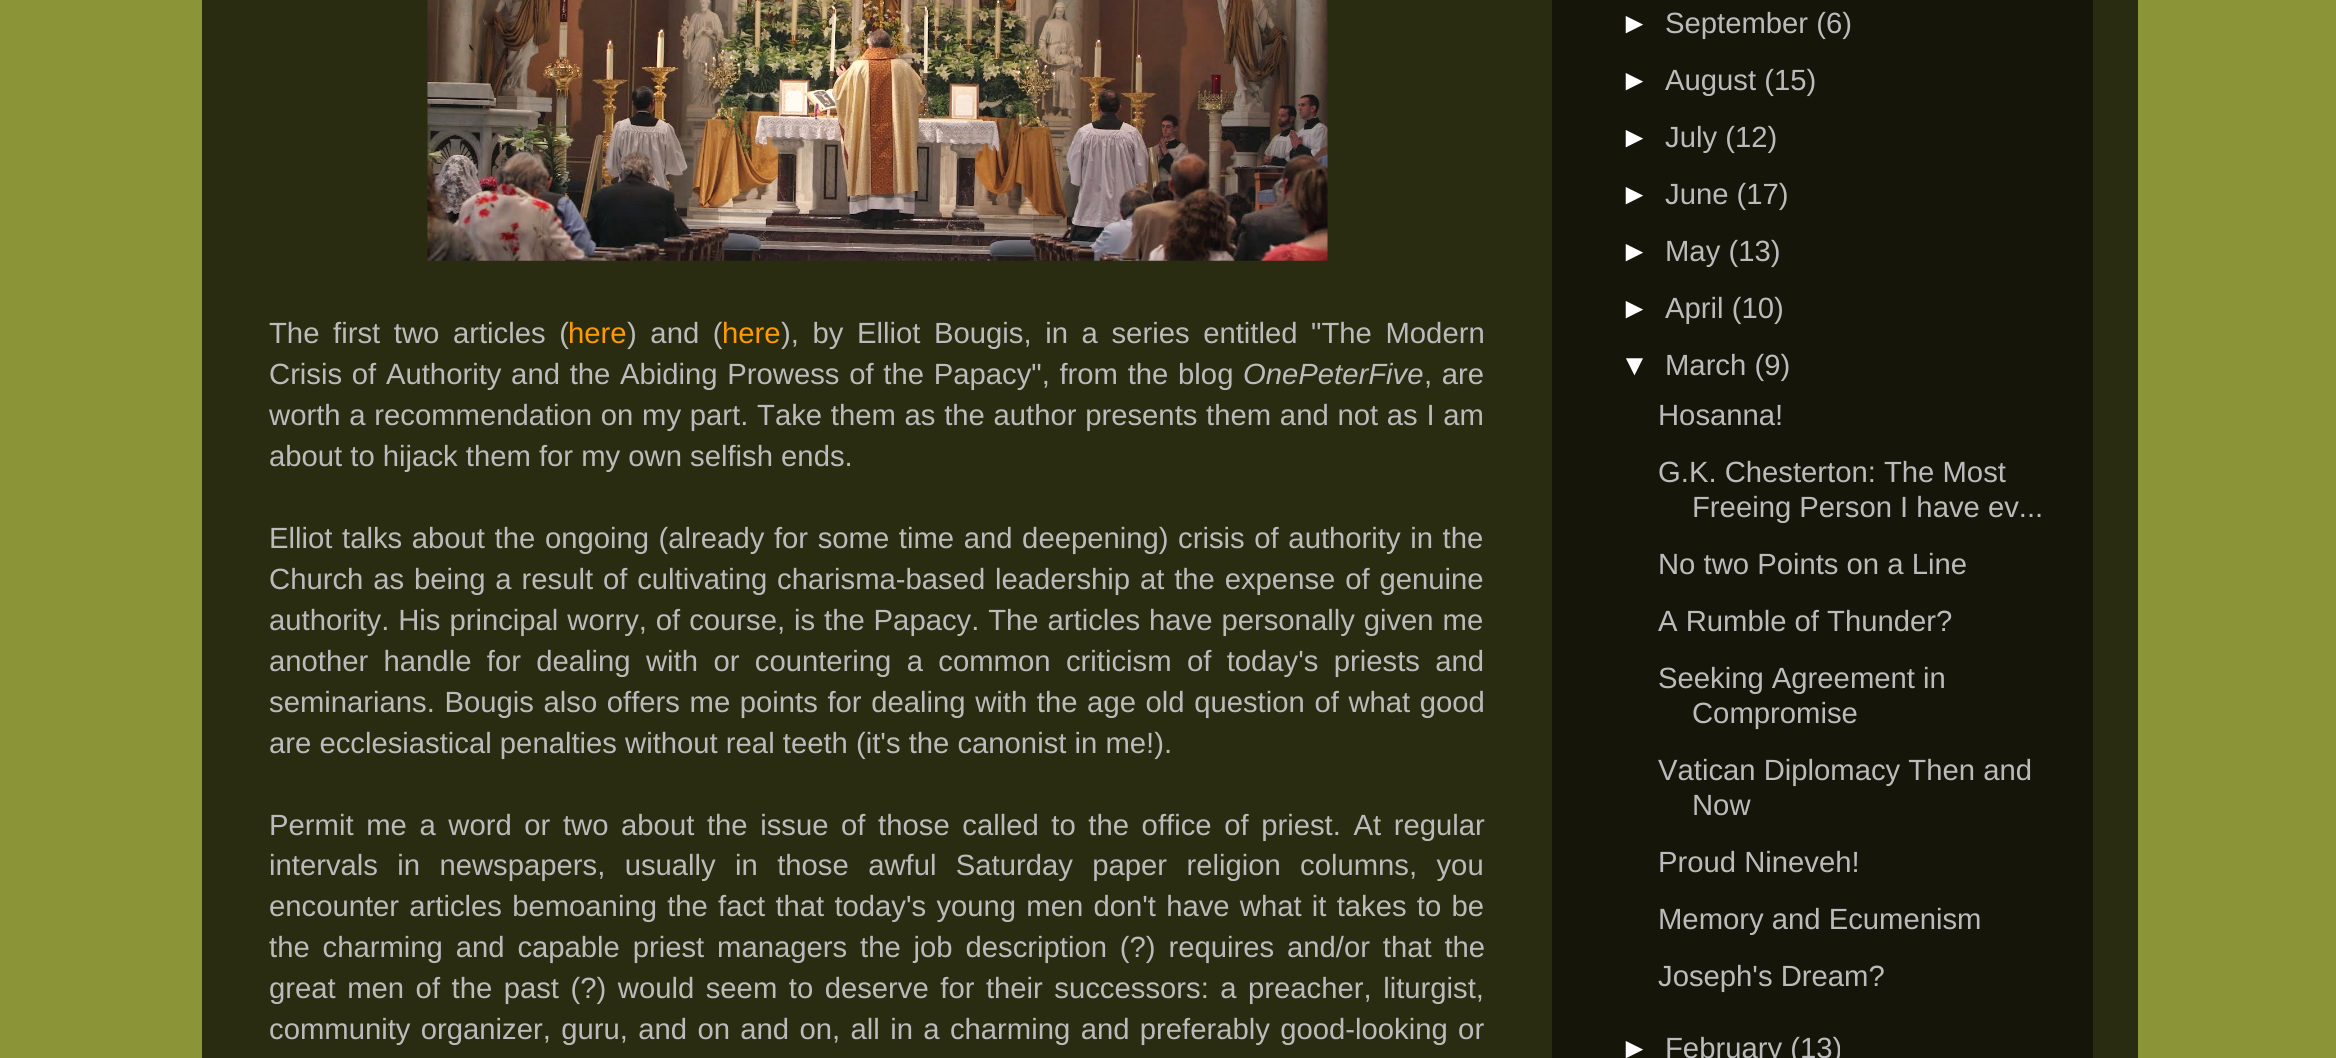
import math
import cairo


def use_color(cr, r, g, b):
  cr.set_source_rgb(r / 255, g / 255, b / 255)

def text(cr, x, y, s, family, size, color, bold=False, italic=False):
  cr.select_font_face(family, cairo.FONT_SLANT_ITALIC if italic else cairo.FONT_SLANT_NORMAL, cairo.FONT_WEIGHT_BOLD if bold else cairo.FONT_WEIGHT_NORMAL)
  cr.set_font_size(size)
  use_color(cr, *color)
  cr.move_to(x, y)
  cr.show_text(s)

def spaced_text(cr, x, y, s, letter, word):
  cr.move_to(x, y)
  for ch in s:
    cr.show_text(ch)
    cr.rel_move_to(letter + word * (ch == ' '), 0)

def box(cr, x, y, w, h, *color):
  use_color(cr, *color)
  cr.rectangle(x, y, w, h)
  cr.fill()

def picture(cr, path, x, y, w, h):
  cr.save()
  cr.set_source_surface(cairo.ImageSurface.create_from_png(path), x, y)
  cr.rectangle(x, y, w, h)
  cr.fill()
  cr.restore()

def draw(cr):
  use_color(cr, 139, 148, 55)
  cr.paint()
  box(cr, 202, 0, 1936, 1058, 42, 44, 17)
  box(cr, 1552, 0, 541, 1058, 21, 22, 9)
  picture(cr, "img_01.png", 427, 0, 901, 261)
  cr.select_font_face("Liberation Sans")
  cr.set_font_size(29.25)
  use_color(cr, 187, 187, 187)
  spaced_text(cr, 269, 343, "The first two articles (", 0, 5.5)
  text(cr, 568, 343, "here", "Liberation Sans", 29.25, (255, 155, 0))
  use_color(cr, 187, 187, 187)
  spaced_text(cr, 627, 343, ") and (", 0, 5.5)
  text(cr, 722, 343, "here", "Liberation Sans", 29.25, (255, 155, 0))
  use_color(cr, 187, 187, 187)
  spaced_text(cr, 781, 343, "), by Elliot Bougis, in a series entitled \"The Modern", 0, 5.5)
  spaced_text(cr, 269, 384, "Crisis of Authority and the Abiding Prowess of the Papacy\", from the blog", 0, 1.6)
  text(cr, 1243, 384, "OnePeterFive", "Liberation Sans", 29.25, (187, 187, 187), italic=True)
  cr.select_font_face("Liberation Sans")
  spaced_text(cr, 1424, 384, ", are", 0, 1.6)
  spaced_text(cr, 269, 425, "worth a recommendation on my part. Take them as the author presents them and not as I am", 0, 0.6)
  text(cr, 269, 466, "about to hijack them for my own selfish ends.", "Liberation Sans", 29.25, (187, 187, 187))
  spaced_text(cr, 269, 548, "Elliot talks about the ongoing (already for some time and deepening) crisis of authority in the", 0, 1.5)
  spaced_text(cr, 269, 589, "Church as being a result of cultivating charisma-based leadership at the expense of genuine", 0, 1.75)
  spaced_text(cr, 269, 630, "authority. His principal worry, of course, is the Papacy. The articles have personally given me", 0, 0.8)
  spaced_text(cr, 269, 671, "another handle for dealing with or countering a common criticism of today's priests and", 0, 7.25)
  spaced_text(cr, 269, 712, "seminarians. Bougis also offers me points for dealing with the age old question of what good", 0, 1.5)
  text(cr, 269, 753, "are ecclesiastical penalties without real teeth (it's the canonist in me!).", "Liberation Sans", 29.25, (187, 187, 187))
  spaced_text(cr, 269, 835, "Permit me a word or two about the issue of those called to the office of priest. At regular", 0, 4.5)
  spaced_text(cr, 269, 875, "intervals in newspapers, usually in those awful Saturday paper religion columns, you", 0, 11.25)
  spaced_text(cr, 269, 916, "encounter articles bemoaning the fact that today's young men don't have what it takes to be", 0, 2.1)
  spaced_text(cr, 269, 957, "the charming and capable priest managers the job description (?) requires and/or that the", 0, 4.75)
  spaced_text(cr, 269, 998, "great men of the past (?) would seem to deserve for their successors: a preacher, liturgist,", 0, 3.4)
  spaced_text(cr, 269, 1039, "community organizer, guru, and on and on, all in a charming and preferably good-looking or", 0, 2.25)
  text(cr, 1620, 33, "►", "Liberation Sans", 29.25, (255, 255, 255))
  text(cr, 1665, 33, "September (6)", "Liberation Sans", 29.25, (187, 187, 187))
  text(cr, 1620, 90, "►", "Liberation Sans", 29.25, (255, 255, 255))
  text(cr, 1665, 90, "August (15)", "Liberation Sans", 29.25, (187, 187, 187))
  text(cr, 1620, 147, "►", "Liberation Sans", 29.25, (255, 255, 255))
  text(cr, 1665, 147, "July (12)", "Liberation Sans", 29.25, (187, 187, 187))
  text(cr, 1620, 204, "►", "Liberation Sans", 29.25, (255, 255, 255))
  text(cr, 1665, 204, "June (17)", "Liberation Sans", 29.25, (187, 187, 187))
  text(cr, 1620, 261, "►", "Liberation Sans", 29.25, (255, 255, 255))
  text(cr, 1665, 261, "May (13)", "Liberation Sans", 29.25, (187, 187, 187))
  text(cr, 1620, 318, "►", "Liberation Sans", 29.25, (255, 255, 255))
  text(cr, 1665, 318, "April (10)", "Liberation Sans", 29.25, (187, 187, 187))
  text(cr, 1620, 375, "▼", "Liberation Sans", 29.25, (255, 255, 255))
  text(cr, 1665, 375, "March (9)", "Liberation Sans", 29.25, (187, 187, 187))
  text(cr, 1658, 425, "Hosanna!", "Liberation Sans", 29.25, (187, 187, 187))
  text(cr, 1658, 482, "G.K. Chesterton: The Most", "Liberation Sans", 29.25, (187, 187, 187))
  text(cr, 1692, 517, "Freeing Person I have ev...", "Liberation Sans", 29.25, (187, 187, 187))
  text(cr, 1658, 574, "No two Points on a Line", "Liberation Sans", 29.25, (187, 187, 187))
  text(cr, 1658, 631, "A Rumble of Thunder?", "Liberation Sans", 29.25, (187, 187, 187))
  text(cr, 1658, 688, "Seeking Agreement in", "Liberation Sans", 29.25, (187, 187, 187))
  text(cr, 1692, 723, "Compromise", "Liberation Sans", 29.25, (187, 187, 187))
  text(cr, 1658, 780, "Vatican Diplomacy Then and", "Liberation Sans", 29.25, (187, 187, 187))
  text(cr, 1692, 815, "Now", "Liberation Sans", 29.25, (187, 187, 187))
  text(cr, 1658, 872, "Proud Nineveh!", "Liberation Sans", 29.25, (187, 187, 187))
  text(cr, 1658, 929, "Memory and Ecumenism", "Liberation Sans", 29.25, (187, 187, 187))
  text(cr, 1658, 986, "Joseph's Dream?", "Liberation Sans", 29.25, (187, 187, 187))
  text(cr, 1620, 1058, "►", "Liberation Sans", 29.25, (255, 255, 255))
  text(cr, 1665, 1058, "February (13)", "Liberation Sans", 29.25, (187, 187, 187))


surface = cairo.ImageSurface(cairo.FORMAT_RGB24, 2336, 1058)
cr = cairo.Context(surface)
options = cairo.FontOptions()
options.set_hint_metrics(cairo.HINT_METRICS_OFF)
options.set_hint_style(cairo.HINT_STYLE_NONE)
cr.set_font_options(options)
cr.set_miter_limit(4)
draw(cr)
surface.write_to_png("out.png")
